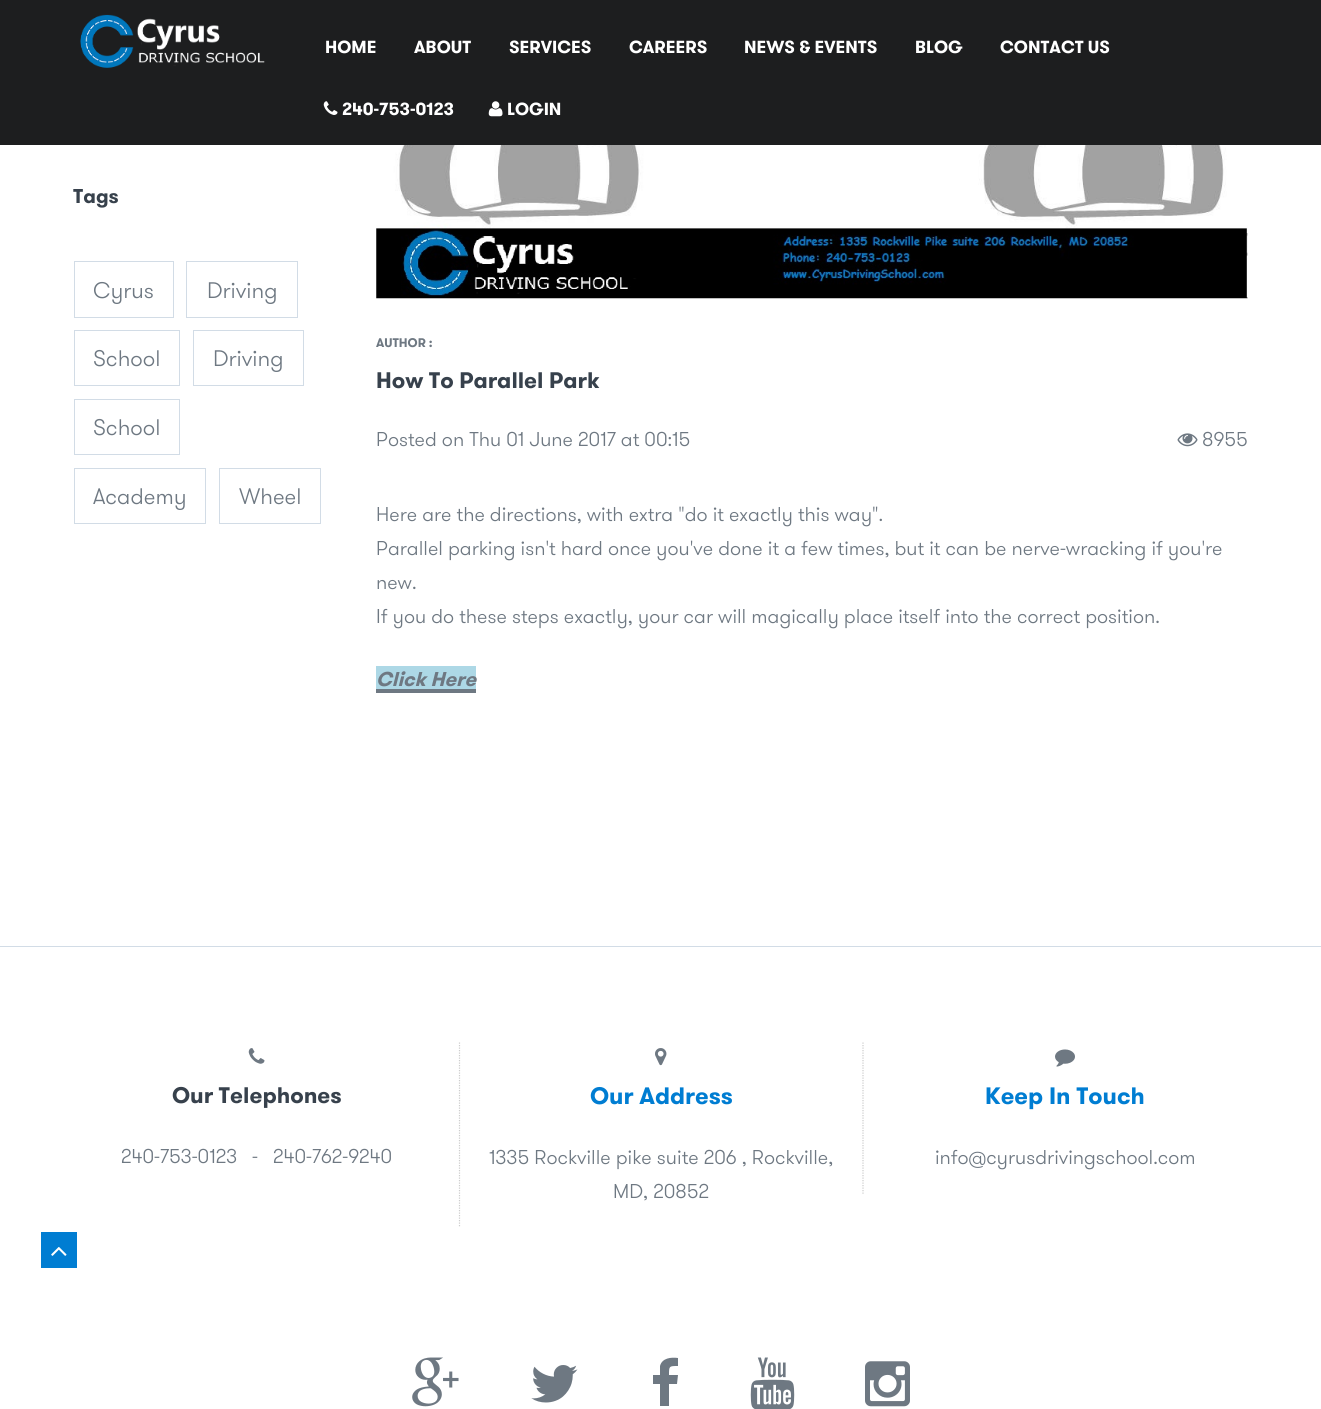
import math
import cairo


def use_color(cr, r, g, b):
  cr.set_source_rgb(r / 255, g / 255, b / 255)

def text(cr, x, y, s, family, size, color, bold=False, italic=False):
  cr.select_font_face(family, cairo.FONT_SLANT_ITALIC if italic else cairo.FONT_SLANT_NORMAL, cairo.FONT_WEIGHT_BOLD if bold else cairo.FONT_WEIGHT_NORMAL)
  cr.set_font_size(size)
  use_color(cr, *color)
  cr.move_to(x, y)
  cr.show_text(s)

def box(cr, x, y, w, h, *color):
  use_color(cr, *color)
  cr.rectangle(x, y, w, h)
  cr.fill()

def picture(cr, path, x, y, w, h):
  cr.save()
  cr.set_source_surface(cairo.ImageSurface.create_from_png(path), x, y)
  cr.rectangle(x, y, w, h)
  cr.fill()
  cr.restore()

def draw(cr):
  use_color(cr, 255, 255, 255)
  cr.paint()
  box(cr, 0, 0, 1321, 145, 29, 30, 31)
  picture(cr, "img_01.png", 80, 14, 185, 54)
  picture(cr, "img_02.png", 323, 101, 15, 14)
  picture(cr, "img_03.png", 488, 101, 15, 16)
  cr.rectangle(74.5, 261.5, 99, 56)
  use_color(cr, 210, 220, 230)
  cr.set_line_width(1)
  cr.stroke()
  cr.rectangle(186.5, 261.5, 111, 56)
  cr.stroke()
  cr.rectangle(74.5, 330.5, 105, 55)
  cr.stroke()
  cr.rectangle(193.5, 330.5, 110, 55)
  cr.stroke()
  cr.rectangle(74.5, 399.5, 105, 55)
  cr.stroke()
  cr.rectangle(74.5, 468.5, 131, 55)
  cr.stroke()
  cr.rectangle(219.5, 468.5, 101, 55)
  cr.stroke()
  picture(cr, "img_04.png", 376, 145, 872, 154)
  picture(cr, "img_05.png", 1177, 433, 21, 14)
  box(cr, 376, 666, 100, 23, 173, 216, 230)
  box(cr, 376, 689, 100, 4, 110, 120, 130)
  box(cr, 0, 946, 1321, 1, 210, 220, 230)
  picture(cr, "img_06.png", 248, 1048, 17, 16)
  cr.new_path()
  cr.move_to(459.5, 1042.5)
  cr.line_to(459.5, 1227.5)
  use_color(cr, 204, 204, 204)
  cr.set_line_width(1.2)
  cr.set_dash([1.25, 1.25])
  cr.stroke()
  picture(cr, "img_07.png", 655, 1048, 12, 18)
  cr.new_path()
  cr.move_to(863, 1042.5)
  cr.line_to(863, 1194)
  cr.stroke()
  picture(cr, "img_08.png", 1055, 1049, 20, 18)
  picture(cr, "img_09.png", 412, 1357, 47, 50)
  picture(cr, "img_10.png", 531, 1365, 47, 38)
  use_color(cr, 110, 120, 130)
  cr.new_path()
  cr.move_to(678, 1358)
  cr.line_to(678, 1366)
  cr.curve_to(669, 1366, 669, 1366, 669, 1375)
  cr.line_to(678, 1375)
  cr.line_to(677, 1384)
  cr.line_to(669, 1384)
  cr.line_to(669, 1406)
  cr.line_to(660, 1406)
  cr.line_to(660, 1384)
  cr.line_to(653, 1384)
  cr.line_to(653, 1375)
  cr.line_to(660, 1375)
  cr.line_to(660, 1366)
  cr.curve_to(662, 1358, 671, 1357, 678, 1358)
  cr.close_path()
  cr.fill()
  picture(cr, "img_11.png", 750, 1357, 45, 52)
  picture(cr, "img_12.png", 865, 1361, 45, 46)
  box(cr, 41, 1232, 36, 36, 0, 125, 210)
  picture(cr, "img_13.png", 51, 1247, 16, 9)
  text(cr, 325, 53, "HOME", "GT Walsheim", 17.5, (255, 255, 255), bold=True)
  text(cr, 414, 53, "ABOUT", "GT Walsheim", 17.5, (255, 255, 255), bold=True)
  text(cr, 509, 53, "SERVICES", "GT Walsheim", 17.5, (255, 255, 255), bold=True)
  text(cr, 629, 53, "CAREERS", "GT Walsheim", 17.5, (255, 255, 255), bold=True)
  text(cr, 744, 53, "NEWS & EVENTS", "GT Walsheim", 17.5, (255, 255, 255), bold=True)
  text(cr, 915, 53, "BLOG", "GT Walsheim", 17.5, (255, 255, 255), bold=True)
  text(cr, 1000, 53, "CONTACT US", "GT Walsheim", 17.5, (255, 255, 255), bold=True)
  text(cr, 342, 115, "240-753-0123", "GT Walsheim", 17.5, (255, 255, 255), bold=True)
  text(cr, 507, 115, "LOGIN", "GT Walsheim", 17.5, (255, 255, 255), bold=True)
  text(cr, 73, 203, "Tags", "GT Walsheim", 20, (55, 65, 76), bold=True)
  text(cr, 93, 298, "Cyrus", "GT Walsheim Light", 22.5, (110, 120, 130))
  text(cr, 207, 298, "Driving", "GT Walsheim Light", 22.5, (110, 120, 130))
  text(cr, 93, 366, "School", "GT Walsheim Light", 22.5, (110, 120, 130))
  text(cr, 213, 366, "Driving", "GT Walsheim Light", 22.5, (110, 120, 130))
  text(cr, 93, 435, "School", "GT Walsheim Light", 22.5, (110, 120, 130))
  text(cr, 93, 504, "Academy", "GT Walsheim Light", 22.5, (110, 120, 130))
  text(cr, 239, 504, "Wheel", "GT Walsheim Light", 22.5, (110, 120, 130))
  text(cr, 376, 347, "AUTHOR :", "GT Walsheim", 12.5, (110, 120, 130), bold=True)
  text(cr, 376, 388, "How To Parallel Park", "GT Walsheim", 22.5, (55, 65, 76), bold=True)
  text(cr, 376, 446, "Posted on Thu 01 June 2017 at 00:15", "GT Walsheim Light", 20, (110, 120, 130))
  text(cr, 1202, 446, "8955", "GT Walsheim Light", 20, (110, 120, 130))
  text(cr, 376, 521, "Here are the directions, with extra \"do it exactly this way\".", "GT Walsheim Light", 20, (110, 120, 130))
  text(cr, 376, 555, "Parallel parking isn't hard once you've done it a few times, but it can be nerve-wracking if you're", "GT Walsheim Light", 20, (110, 120, 130))
  text(cr, 376, 589, "new.", "GT Walsheim Light", 20, (110, 120, 130))
  text(cr, 376, 623, "If you do these steps exactly, your car will magically place itself into the correct position.", "GT Walsheim Light", 20, (110, 120, 130))
  text(cr, 376, 686, "Click Here", "GT Walsheim", 20, (110, 120, 130), bold=True, italic=True)
  text(cr, 172, 1103, "Our Telephones", "GT Walsheim", 22.5, (55, 65, 76), bold=True)
  text(cr, 121, 1163, "240-753-0123", "GT Walsheim Light", 20, (110, 120, 130))
  text(cr, 252, 1163, "-", "GT Walsheim Light", 20, (110, 120, 130))
  text(cr, 273, 1163, "240-762-9240", "GT Walsheim Light", 20, (110, 120, 130))
  text(cr, 590, 1104, "Our Address", "GT Walsheim", 23.75, (0, 125, 210), bold=True)
  text(cr, 489, 1164, "1335 Rockville pike suite 206 , Rockville,", "GT Walsheim Light", 20, (110, 120, 130))
  text(cr, 613, 1198, "MD, 20852", "GT Walsheim Light", 20, (110, 120, 130))
  text(cr, 985, 1104, "Keep In Touch", "GT Walsheim", 23.75, (0, 125, 210), bold=True)
  text(cr, 935, 1164, "info@cyrusdrivingschool.com", "GT Walsheim Light", 20, (110, 120, 130))


surface = cairo.ImageSurface(cairo.FORMAT_RGB24, 1321, 1409)
cr = cairo.Context(surface)
options = cairo.FontOptions()
options.set_hint_metrics(cairo.HINT_METRICS_OFF)
options.set_hint_style(cairo.HINT_STYLE_NONE)
cr.set_font_options(options)
cr.set_miter_limit(4)
draw(cr)
surface.write_to_png("out.png")
